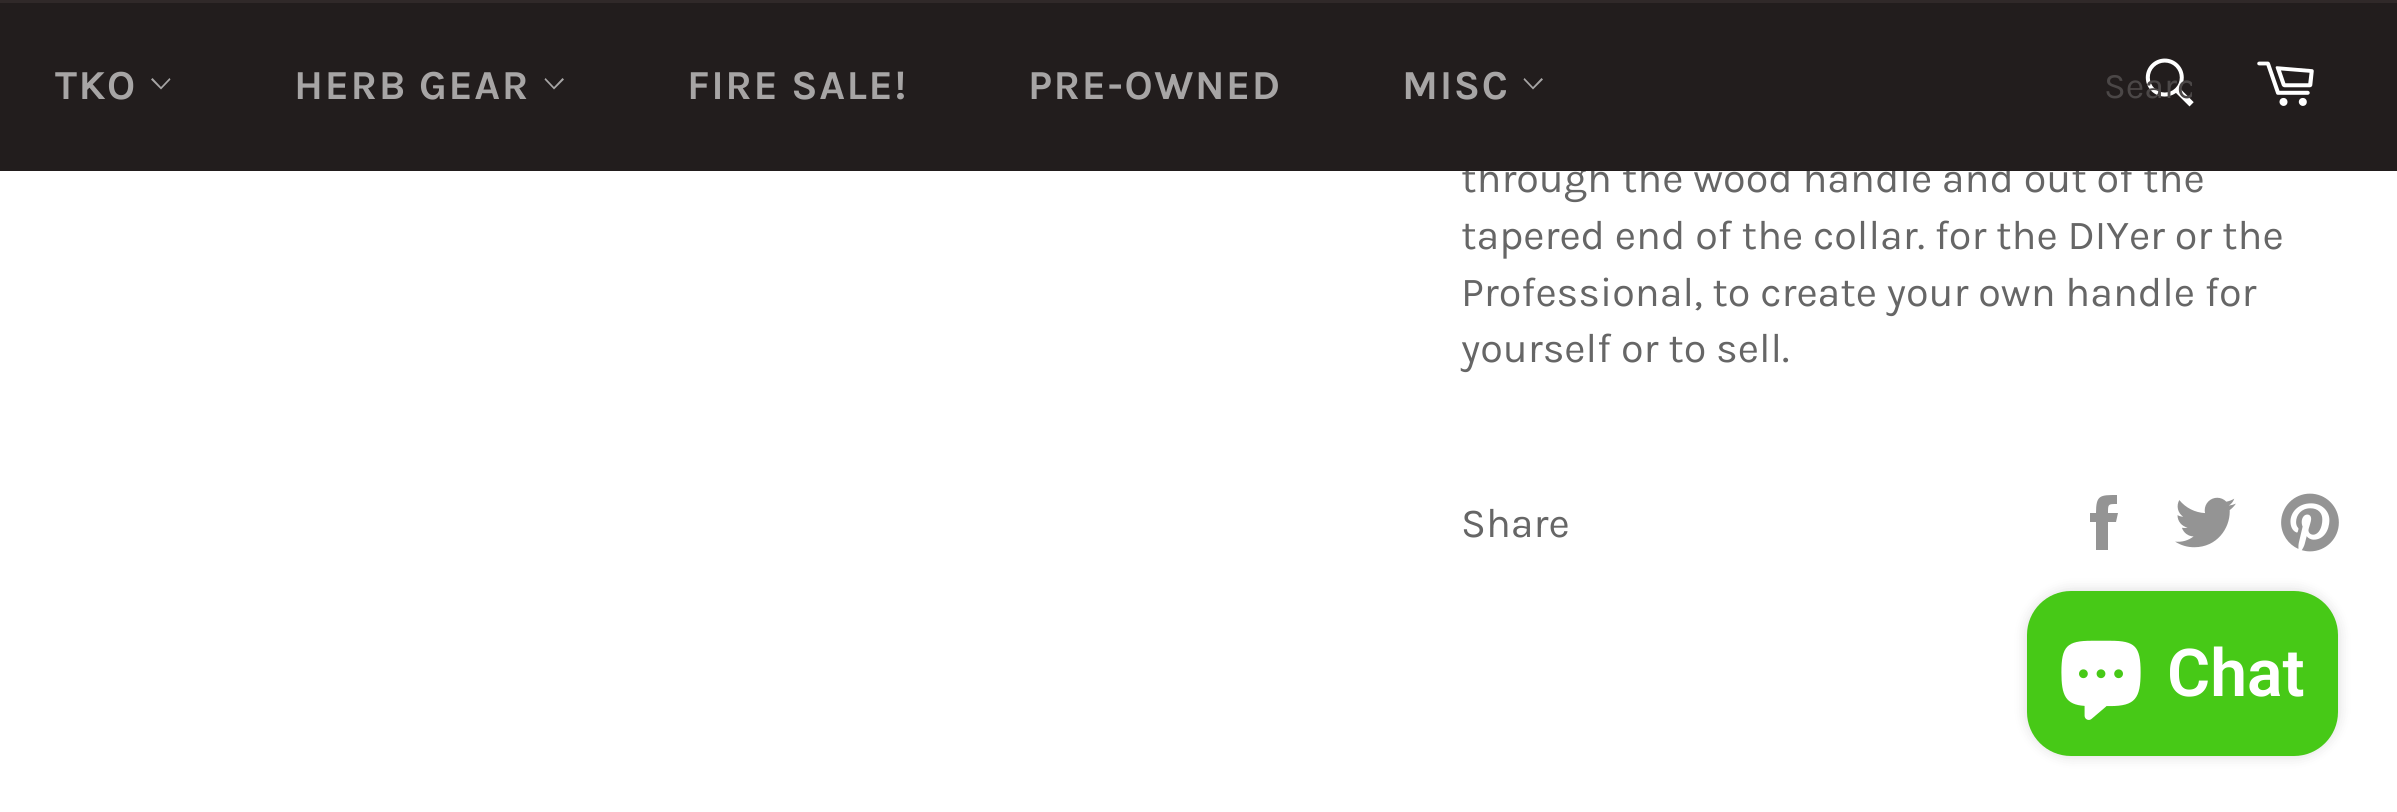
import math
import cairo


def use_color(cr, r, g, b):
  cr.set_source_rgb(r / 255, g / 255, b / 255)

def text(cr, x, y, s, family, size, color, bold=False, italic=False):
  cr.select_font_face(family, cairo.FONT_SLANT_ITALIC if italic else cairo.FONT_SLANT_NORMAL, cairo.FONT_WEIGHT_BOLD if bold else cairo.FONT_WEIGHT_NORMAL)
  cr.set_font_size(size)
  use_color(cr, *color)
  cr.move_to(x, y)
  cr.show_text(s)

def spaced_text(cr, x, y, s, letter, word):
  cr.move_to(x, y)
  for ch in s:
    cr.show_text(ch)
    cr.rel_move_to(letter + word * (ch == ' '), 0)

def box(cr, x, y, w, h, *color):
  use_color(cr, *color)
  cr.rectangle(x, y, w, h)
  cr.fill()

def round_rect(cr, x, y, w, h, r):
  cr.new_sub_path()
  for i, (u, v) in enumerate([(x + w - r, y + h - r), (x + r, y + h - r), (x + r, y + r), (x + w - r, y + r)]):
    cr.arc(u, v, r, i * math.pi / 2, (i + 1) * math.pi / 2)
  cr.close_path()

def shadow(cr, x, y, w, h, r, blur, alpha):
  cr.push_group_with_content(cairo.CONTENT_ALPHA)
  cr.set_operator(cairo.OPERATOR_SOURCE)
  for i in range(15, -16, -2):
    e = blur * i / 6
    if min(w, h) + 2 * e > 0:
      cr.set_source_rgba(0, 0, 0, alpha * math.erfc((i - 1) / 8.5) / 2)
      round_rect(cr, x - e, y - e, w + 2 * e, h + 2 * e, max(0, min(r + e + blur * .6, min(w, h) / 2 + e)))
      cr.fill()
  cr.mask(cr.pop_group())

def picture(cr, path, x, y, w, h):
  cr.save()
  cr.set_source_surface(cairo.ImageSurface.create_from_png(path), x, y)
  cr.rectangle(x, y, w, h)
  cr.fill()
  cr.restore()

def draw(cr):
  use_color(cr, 255, 255, 255)
  cr.paint()
  box(cr, 0, 0, 2397, 3, 48, 41, 41)
  use_color(cr, 148, 148, 148)
  cr.new_path()
  cr.move_to(2108, 513)
  cr.curve_to(2108, 504, 2108, 504, 2117, 504)
  cr.line_to(2117, 495)
  cr.curve_to(2100, 495, 2096, 495, 2096, 513)
  cr.line_to(2090, 513)
  cr.line_to(2090, 522)
  cr.line_to(2096, 522)
  cr.line_to(2096, 550)
  cr.line_to(2108, 550)
  cr.line_to(2108, 522)
  cr.line_to(2116, 522)
  cr.line_to(2118, 513)
  cr.close_path()
  cr.fill()
  picture(cr, "img_03.png", 2175, 497, 61, 51)
  picture(cr, "img_04.png", 2281, 493, 58, 59)
  use_color(cr, 0, 0, 0)
  shadow(cr, 2027, 591, 311, 165, 44, 7, 0.15)
  use_color(cr, 71, 201, 23)
  round_rect(cr, 2027, 591, 311, 165, 44)
  cr.fill()
  picture(cr, "img_05.png", 2061, 640, 80, 80)
  text(cr, 1461, 192, "through the wood handle and out of the", "Karla", 41.25, (102, 102, 102))
  box(cr, 0, 3, 2397, 168, 34, 29, 29)
  picture(cr, "img_01.png", 2145, 58, 49, 49)
  cr.save()
  cr.rectangle(2104, 66, 88, 41)
  cr.clip()
  text(cr, 2104, 98, "Searc", "Karla", 36, (75, 71, 71))
  cr.restore()
  picture(cr, "img_02.png", 2257, 61, 57, 45)
  use_color(cr, 167, 165, 165)
  cr.new_path()
  cr.move_to(1541.5, 78)
  cr.line_to(1543, 79.5)
  cr.line_to(1533, 89.5)
  cr.line_to(1523.5, 79.5)
  cr.line_to(1524.5, 78)
  cr.line_to(1533, 87)
  cr.close_path()
  cr.fill()
  cr.select_font_face("Karla", cairo.FONT_SLANT_NORMAL, cairo.FONT_WEIGHT_BOLD)
  spaced_text(cr, 1402, 99, "MISC", 1.6, 0)
  spaced_text(cr, 1028, 99, "PRE-OWNED", 1.6, 0)
  spaced_text(cr, 687, 99, "FIRE SALE!", 1.6, 0)
  cr.new_path()
  cr.move_to(562.5, 78)
  cr.line_to(564, 79.5)
  cr.line_to(554, 89.5)
  cr.line_to(544.5, 79.5)
  cr.line_to(545.5, 78)
  cr.line_to(554, 87)
  cr.close_path()
  cr.fill()
  spaced_text(cr, 294, 99, "HERB GEAR", 1.6, 0)
  cr.new_path()
  cr.move_to(169.5, 78)
  cr.line_to(170.5, 79.5)
  cr.line_to(161, 89.5)
  cr.line_to(151, 79.5)
  cr.line_to(152.5, 78)
  cr.line_to(161, 87)
  cr.close_path()
  cr.fill()
  spaced_text(cr, 55, 99, "TKO", 1.6, 0)
  text(cr, 1461, 249, "tapered end of the collar. for the DIYer or the", "Karla", 41.25, (102, 102, 102))
  text(cr, 1461, 306, "Professional, to create your own handle for", "Karla", 41.25, (102, 102, 102))
  text(cr, 1461, 362, "yourself or to sell.", "Karla", 41.25, (102, 102, 102))
  text(cr, 1461, 537, "Share", "Karla", 41.25, (102, 102, 102))
  text(cr, 2167, 696, "Chat", "Roboto SemiBold", 66, (255, 255, 255))


surface = cairo.ImageSurface(cairo.FORMAT_RGB24, 2397, 812)
cr = cairo.Context(surface)
options = cairo.FontOptions()
options.set_hint_metrics(cairo.HINT_METRICS_OFF)
options.set_hint_style(cairo.HINT_STYLE_NONE)
cr.set_font_options(options)
cr.set_miter_limit(4)
draw(cr)
surface.write_to_png("out.png")
